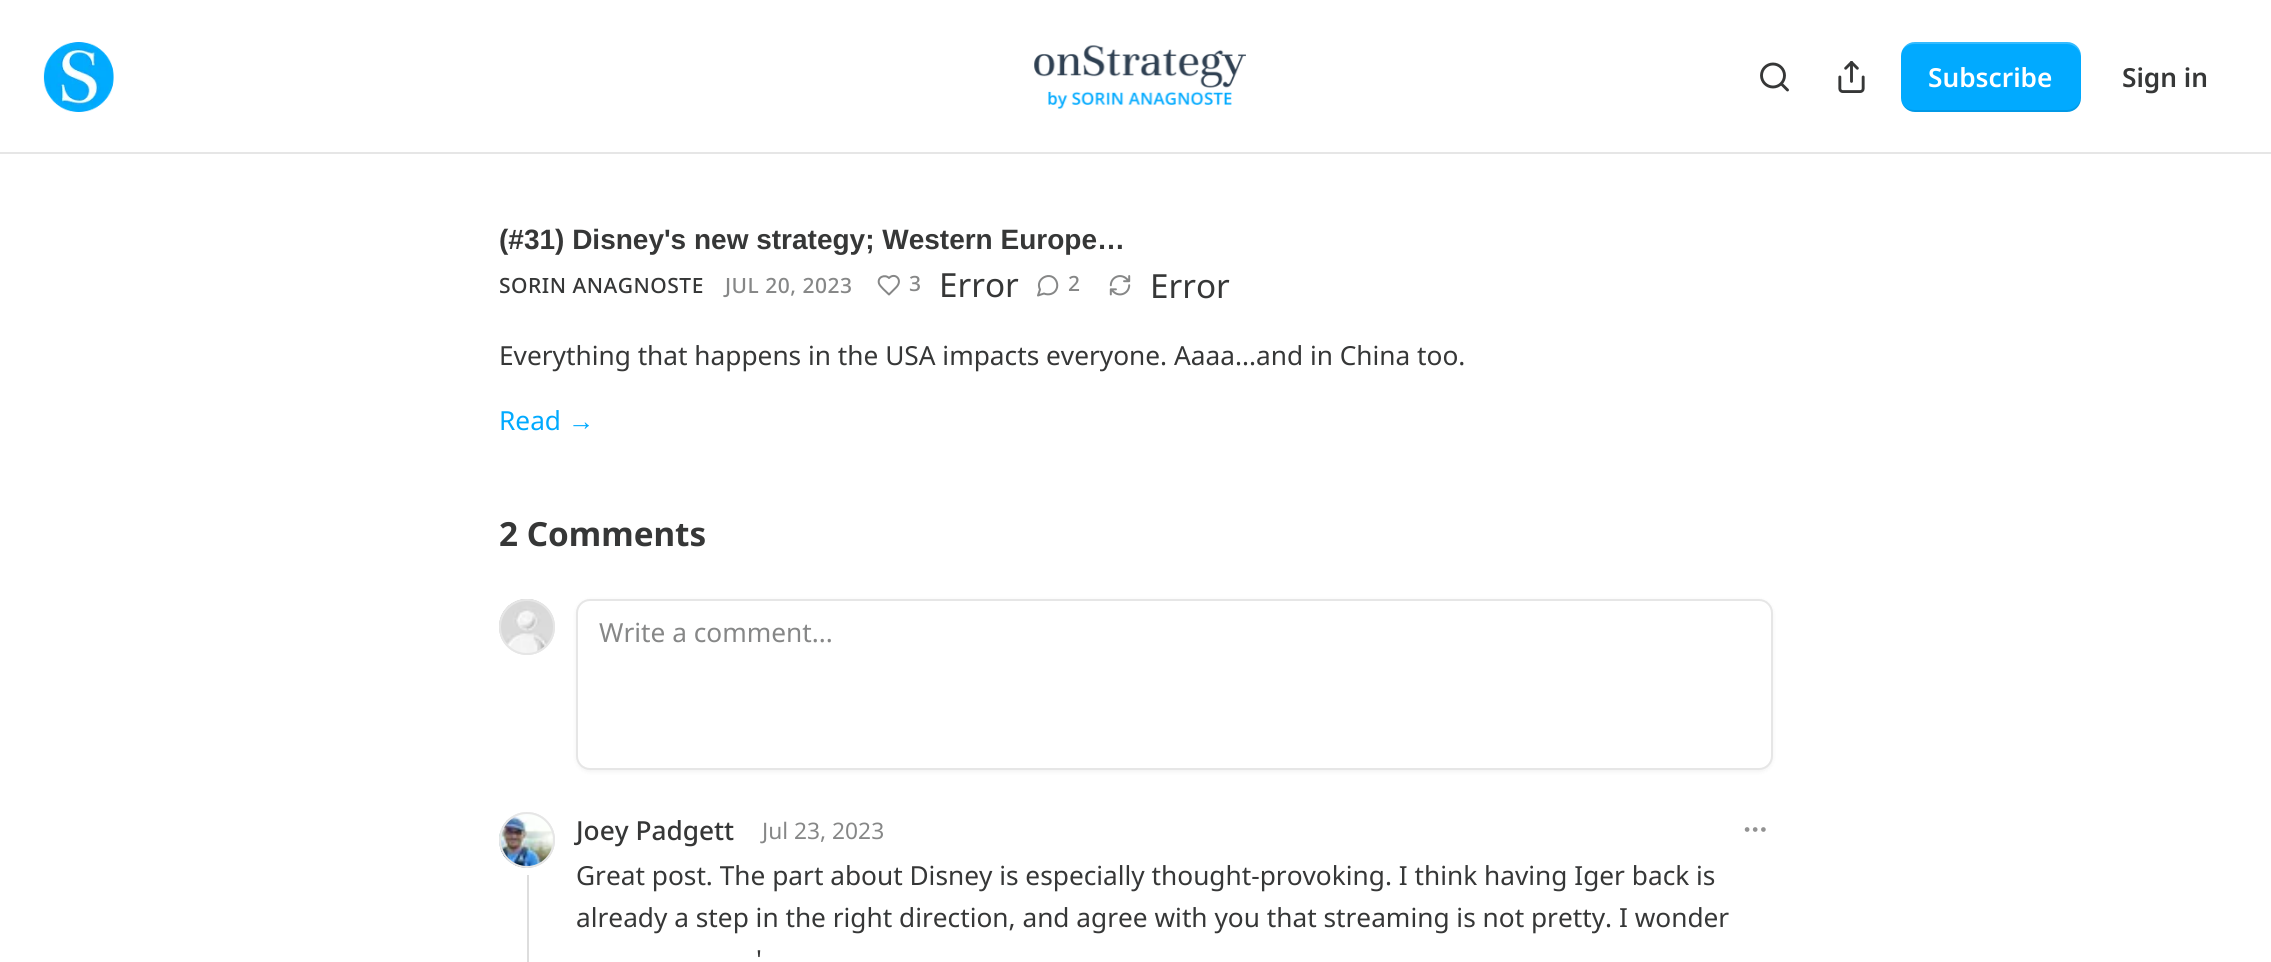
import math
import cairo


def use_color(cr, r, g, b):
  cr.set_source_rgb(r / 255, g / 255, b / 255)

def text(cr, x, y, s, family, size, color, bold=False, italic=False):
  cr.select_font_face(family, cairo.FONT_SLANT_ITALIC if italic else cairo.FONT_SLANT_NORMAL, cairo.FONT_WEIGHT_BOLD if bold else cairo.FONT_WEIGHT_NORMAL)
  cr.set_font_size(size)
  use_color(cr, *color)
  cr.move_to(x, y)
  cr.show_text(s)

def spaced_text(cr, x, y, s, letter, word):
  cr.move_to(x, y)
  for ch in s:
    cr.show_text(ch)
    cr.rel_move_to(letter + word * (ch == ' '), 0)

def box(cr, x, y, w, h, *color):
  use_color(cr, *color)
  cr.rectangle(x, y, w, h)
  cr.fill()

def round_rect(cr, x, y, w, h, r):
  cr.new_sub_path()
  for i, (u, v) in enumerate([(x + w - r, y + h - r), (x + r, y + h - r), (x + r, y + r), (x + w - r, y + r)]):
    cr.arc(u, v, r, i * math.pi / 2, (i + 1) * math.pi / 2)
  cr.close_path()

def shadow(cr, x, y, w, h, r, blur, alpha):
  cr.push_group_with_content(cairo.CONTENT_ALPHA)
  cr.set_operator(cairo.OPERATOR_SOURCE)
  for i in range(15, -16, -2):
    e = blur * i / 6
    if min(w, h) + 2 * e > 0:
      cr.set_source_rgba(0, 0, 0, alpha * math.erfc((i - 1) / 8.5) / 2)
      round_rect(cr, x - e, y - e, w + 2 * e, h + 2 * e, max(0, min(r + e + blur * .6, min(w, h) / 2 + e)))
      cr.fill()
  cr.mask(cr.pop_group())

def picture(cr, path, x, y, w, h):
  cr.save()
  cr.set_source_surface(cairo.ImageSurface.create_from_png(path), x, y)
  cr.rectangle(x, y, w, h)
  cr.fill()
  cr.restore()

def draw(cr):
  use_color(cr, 255, 255, 255)
  cr.paint()
  box(cr, 0, 152, 2271, 2, 230, 230, 230)
  picture(cr, "img_01.png", 43, 42, 71, 70)
  picture(cr, "img_02.png", 1034, 45, 212, 64)
  cr.arc(1773, 75.5, 11.5, 0, 2 * math.pi)
  use_color(cr, 54, 55, 55)
  cr.set_line_width(2.9)
  cr.stroke()
  cr.new_path()
  cr.move_to(1787.5, 90)
  cr.line_to(1781.5, 84)
  cr.set_line_cap(cairo.LINE_CAP_ROUND)
  cr.set_line_join(cairo.LINE_JOIN_ROUND)
  cr.stroke()
  picture(cr, "img_03.png", 1838, 61, 27, 32)
  use_color(cr, 1, 170, 255)
  round_rect(cr, 1901, 42, 180, 70, 14)
  cr.fill()
  cr.set_source_rgba(0, 0, 0, 0.1)
  cr.new_path()
  cr.move_to(1902, 103)
  cr.curve_to(1904, 108, 1909, 112, 1915, 112)
  cr.line_to(2067, 112)
  cr.curve_to(2075, 112, 2081, 106, 2081, 98)
  cr.line_to(2081, 96)
  cr.curve_to(2081, 104, 2074, 110, 2067, 110)
  cr.line_to(1914, 110)
  cr.curve_to(1909, 110, 1904, 107, 1902, 103)
  cr.close_path()
  cr.fill()
  cr.set_source_rgba(1, 1, 1, 0.2)
  cr.new_path()
  cr.move_to(1914, 44)
  cr.line_to(2067, 44)
  cr.curve_to(2074, 44, 2081, 50, 2081, 58)
  cr.line_to(2081, 56)
  cr.curve_to(2081, 48, 2075, 42, 2067, 42)
  cr.line_to(1915, 42)
  cr.curve_to(1909, 42, 1904, 46, 1902, 51)
  cr.curve_to(1904, 47, 1909, 44, 1914, 44)
  cr.close_path()
  cr.fill()
  cr.new_path()
  cr.move_to(896, 287.5)
  cr.curve_to(903.5, 280, 895, 272, 889, 278)
  cr.curve_to(885, 274, 877, 277, 879, 283.5)
  cr.curve_to(880, 286.5, 886.5, 292, 889, 294.5)
  cr.close_path()
  use_color(cr, 134, 135, 135)
  cr.set_line_width(2)
  cr.stroke()
  cr.new_path()
  cr.move_to(1044, 293.5)
  cr.curve_to(1048.5, 295.5, 1054.5, 294, 1056.5, 289)
  cr.curve_to(1057.5, 287, 1057.5, 284, 1056.5, 281.5)
  cr.curve_to(1051.5, 270, 1034.5, 278.5, 1040, 289.5)
  cr.line_to(1038, 295.5)
  cr.close_path()
  cr.stroke()
  picture(cr, "img_04.png", 1109, 275, 22, 21)
  cr.arc(527, 627, 27, 0, 2 * math.pi)
  use_color(cr, 230, 230, 230)
  cr.set_line_cap(cairo.LINE_CAP_BUTT)
  cr.set_line_join(cairo.LINE_JOIN_MITER)
  cr.stroke()
  picture(cr, "img_05.png", 499, 599, 56, 55)
  cr.arc(527, 627, 27, 0, 2 * math.pi)
  cr.stroke()
  use_color(cr, 0, 0, 0)
  shadow(cr, 576, 600, 1197, 172, 14, 2, 0.05)
  use_color(cr, 255, 255, 255)
  round_rect(cr, 577, 600, 1195, 169, 13)
  cr.fill_preserve()
  use_color(cr, 230, 230, 230)
  cr.stroke()
  box(cr, 527, 875, 2, 87, 221, 221, 221)
  cr.arc(527, 840, 27, 0, 2 * math.pi)
  use_color(cr, 230, 230, 230)
  cr.stroke()
  picture(cr, "img_06.png", 499, 812, 55, 56)
  cr.arc(527, 840, 27, 0, 2 * math.pi)
  cr.stroke()
  cr.arc(1755.2, 829.5, 1.2, 0, 2 * math.pi)
  use_color(cr, 146, 146, 146)
  cr.set_line_width(2.3)
  cr.stroke()
  cr.arc(1763.4, 829.5, 1.2, 0, 2 * math.pi)
  cr.stroke()
  cr.arc(1747.1, 829.5, 1.2, 0, 2 * math.pi)
  cr.stroke()
  text(cr, 1928, 87, "Subscribe", "Noto Sans SemiBold", 26.25, (255, 255, 255))
  text(cr, 2122, 87, "Sign in", "Noto Sans SemiBold", 26.25, (54, 55, 55))
  text(cr, 499, 249, "(#31) Disney's new strategy; Western Europe…", "Liberation Sans", 28, (54, 55, 55), bold=True)
  cr.select_font_face("Noto Sans Medium")
  cr.set_font_size(21)
  spaced_text(cr, 499, 293, "SORIN ANAGNOSTE", 0.5, 0)
  use_color(cr, 134, 135, 135)
  spaced_text(cr, 725, 293, "JUL 20, 2023", 0.5, 0)
  spaced_text(cr, 909, 291, "3", 0.5, 0)
  text(cr, 939, 297, "Error", "Noto Sans", 33.25, (54, 55, 55))
  cr.select_font_face("Noto Sans Medium")
  cr.set_font_size(21)
  use_color(cr, 134, 135, 135)
  spaced_text(cr, 1068, 291, "2", 0.5, 0)
  text(cr, 1150, 298, "Error", "Noto Sans", 33.25, (54, 55, 55))
  text(cr, 499, 365, "Everything that happens in the USA impacts everyone. Aaaa...and in China too.", "Noto Sans", 26.25, (54, 55, 55))
  text(cr, 499, 430, "Read", "Noto Sans", 26.25, (1, 170, 255))
  text(cr, 568, 430, "→", "Liberation Sans", 26.25, (1, 170, 255))
  text(cr, 499, 546, "2 Comments", "Noto Sans", 33.25, (54, 55, 55), bold=True)
  text(cr, 599, 642, "Write a comment...", "Noto Sans", 26.25, (134, 135, 135))
  text(cr, 576, 840, "Joey Padgett", "Noto Sans Medium", 26.25, (54, 55, 55))
  text(cr, 762, 839, "Jul 23, 2023", "Noto Sans", 22.75, (134, 135, 135))
  text(cr, 576, 885, "Great post. The part about Disney is especially thought-provoking. I think having Iger back is", "Noto Sans", 26.25, (54, 55, 55))
  text(cr, 576, 927, "already a step in the right direction, and agree with you that streaming is not pretty. I wonder", "Noto Sans", 26.25, (54, 55, 55))
  text(cr, 756, 969, "'", "Noto Sans", 26.25, (54, 55, 55))


surface = cairo.ImageSurface(cairo.FORMAT_RGB24, 2271, 962)
cr = cairo.Context(surface)
options = cairo.FontOptions()
options.set_hint_metrics(cairo.HINT_METRICS_OFF)
options.set_hint_style(cairo.HINT_STYLE_NONE)
cr.set_font_options(options)
cr.set_miter_limit(4)
draw(cr)
surface.write_to_png("out.png")
